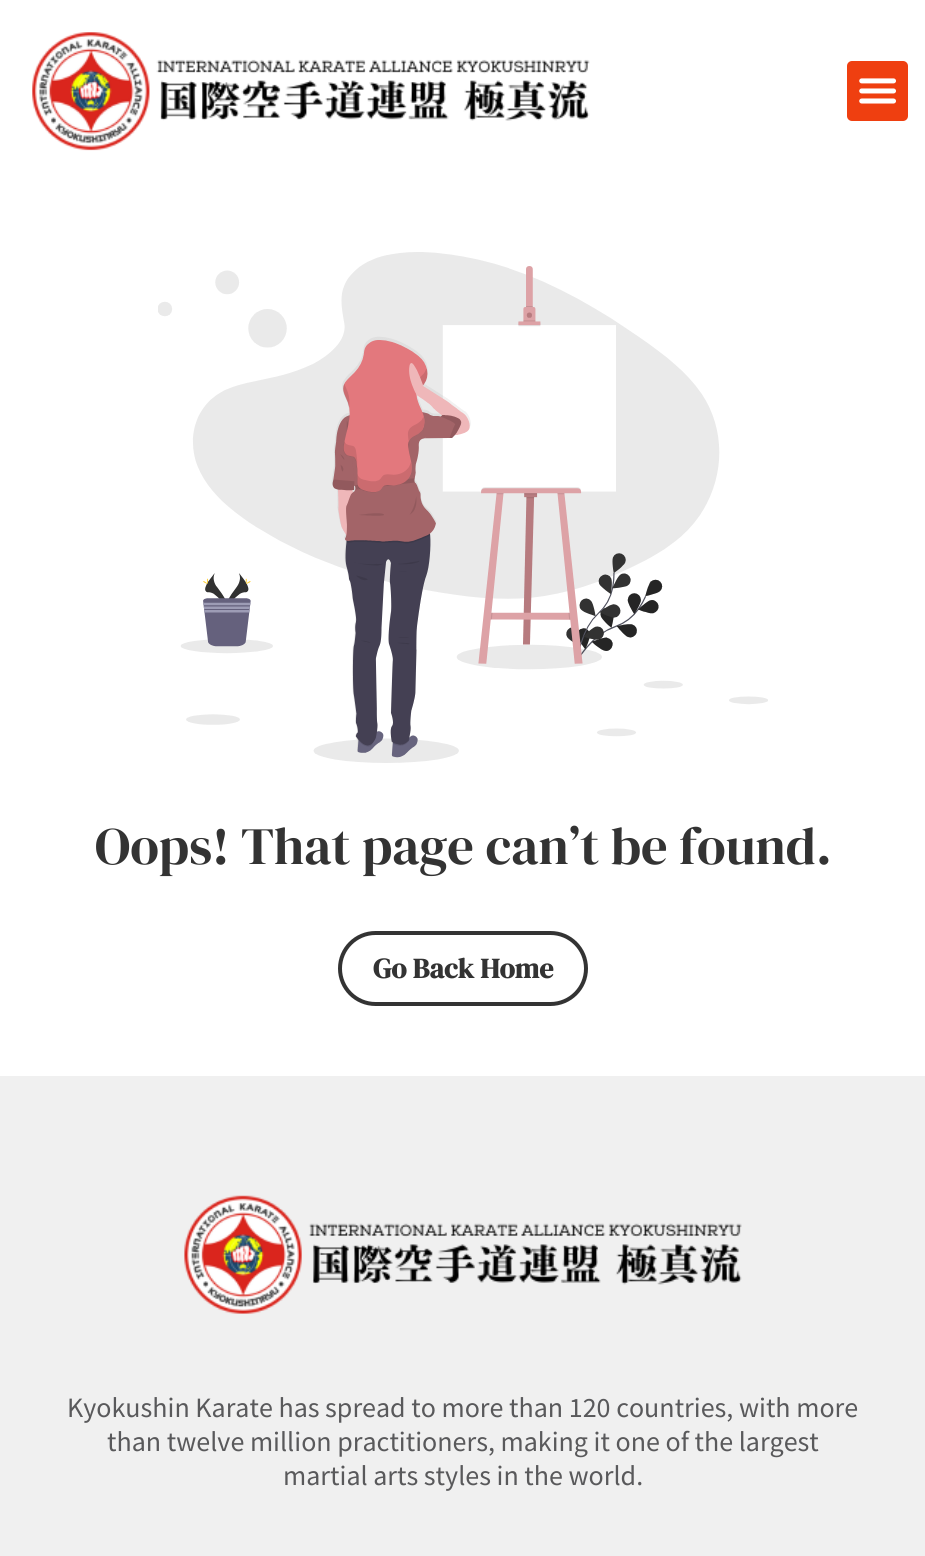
import math
import cairo


def use_color(cr, r, g, b):
  cr.set_source_rgb(r / 255, g / 255, b / 255)

def text(cr, x, y, s, family, size, color, bold=False, italic=False):
  cr.select_font_face(family, cairo.FONT_SLANT_ITALIC if italic else cairo.FONT_SLANT_NORMAL, cairo.FONT_WEIGHT_BOLD if bold else cairo.FONT_WEIGHT_NORMAL)
  cr.set_font_size(size)
  use_color(cr, *color)
  cr.move_to(x, y)
  cr.show_text(s)

def box(cr, x, y, w, h, *color):
  use_color(cr, *color)
  cr.rectangle(x, y, w, h)
  cr.fill()

def round_rect(cr, x, y, w, h, r):
  cr.new_sub_path()
  for i, (u, v) in enumerate([(x + w - r, y + h - r), (x + r, y + h - r), (x + r, y + r), (x + w - r, y + r)]):
    cr.arc(u, v, r, i * math.pi / 2, (i + 1) * math.pi / 2)
  cr.close_path()

def picture(cr, path, x, y, w, h):
  cr.save()
  cr.set_source_surface(cairo.ImageSurface.create_from_png(path), x, y)
  cr.rectangle(x, y, w, h)
  cr.fill()
  cr.restore()

def draw(cr):
  use_color(cr, 255, 255, 255)
  cr.paint()
  picture(cr, "img_01.png", 32, 32, 558, 119)
  use_color(cr, 239, 63, 16)
  round_rect(cr, 847, 61, 61, 60, 5)
  cr.fill()
  picture(cr, "img_02.png", 859, 78, 37, 26)
  picture(cr, "img_03.png", 158, 252, 610, 511)
  round_rect(cr, 340, 933, 246, 71, 35.5)
  use_color(cr, 51, 51, 51)
  cr.set_line_width(4)
  cr.stroke()
  box(cr, 0, 1076, 925, 480, 240, 240, 240)
  picture(cr, "img_04.png", 184, 1195, 558, 119)
  text(cr, 95, 864, "Oops! That page can’t be found.", "DM Serif Display", 52.5, (51, 51, 51))
  text(cr, 373, 978, "Go Back Home", "DM Serif Display", 28, (51, 51, 51), bold=True)
  text(cr, 67, 1417, "Kyokushin Karate has spread to more than 120 countries, with more", "Source Sans Pro", 28, (89, 89, 91))
  text(cr, 107, 1451, "than twelve million practitioners, making it one of the largest", "Source Sans Pro", 28, (89, 89, 91))
  text(cr, 283, 1485, "martial arts styles in the world.", "Source Sans Pro", 28, (89, 89, 91))


surface = cairo.ImageSurface(cairo.FORMAT_RGB24, 925, 1556)
cr = cairo.Context(surface)
options = cairo.FontOptions()
options.set_hint_metrics(cairo.HINT_METRICS_OFF)
options.set_hint_style(cairo.HINT_STYLE_NONE)
cr.set_font_options(options)
cr.set_miter_limit(4)
draw(cr)
surface.write_to_png("out.png")
